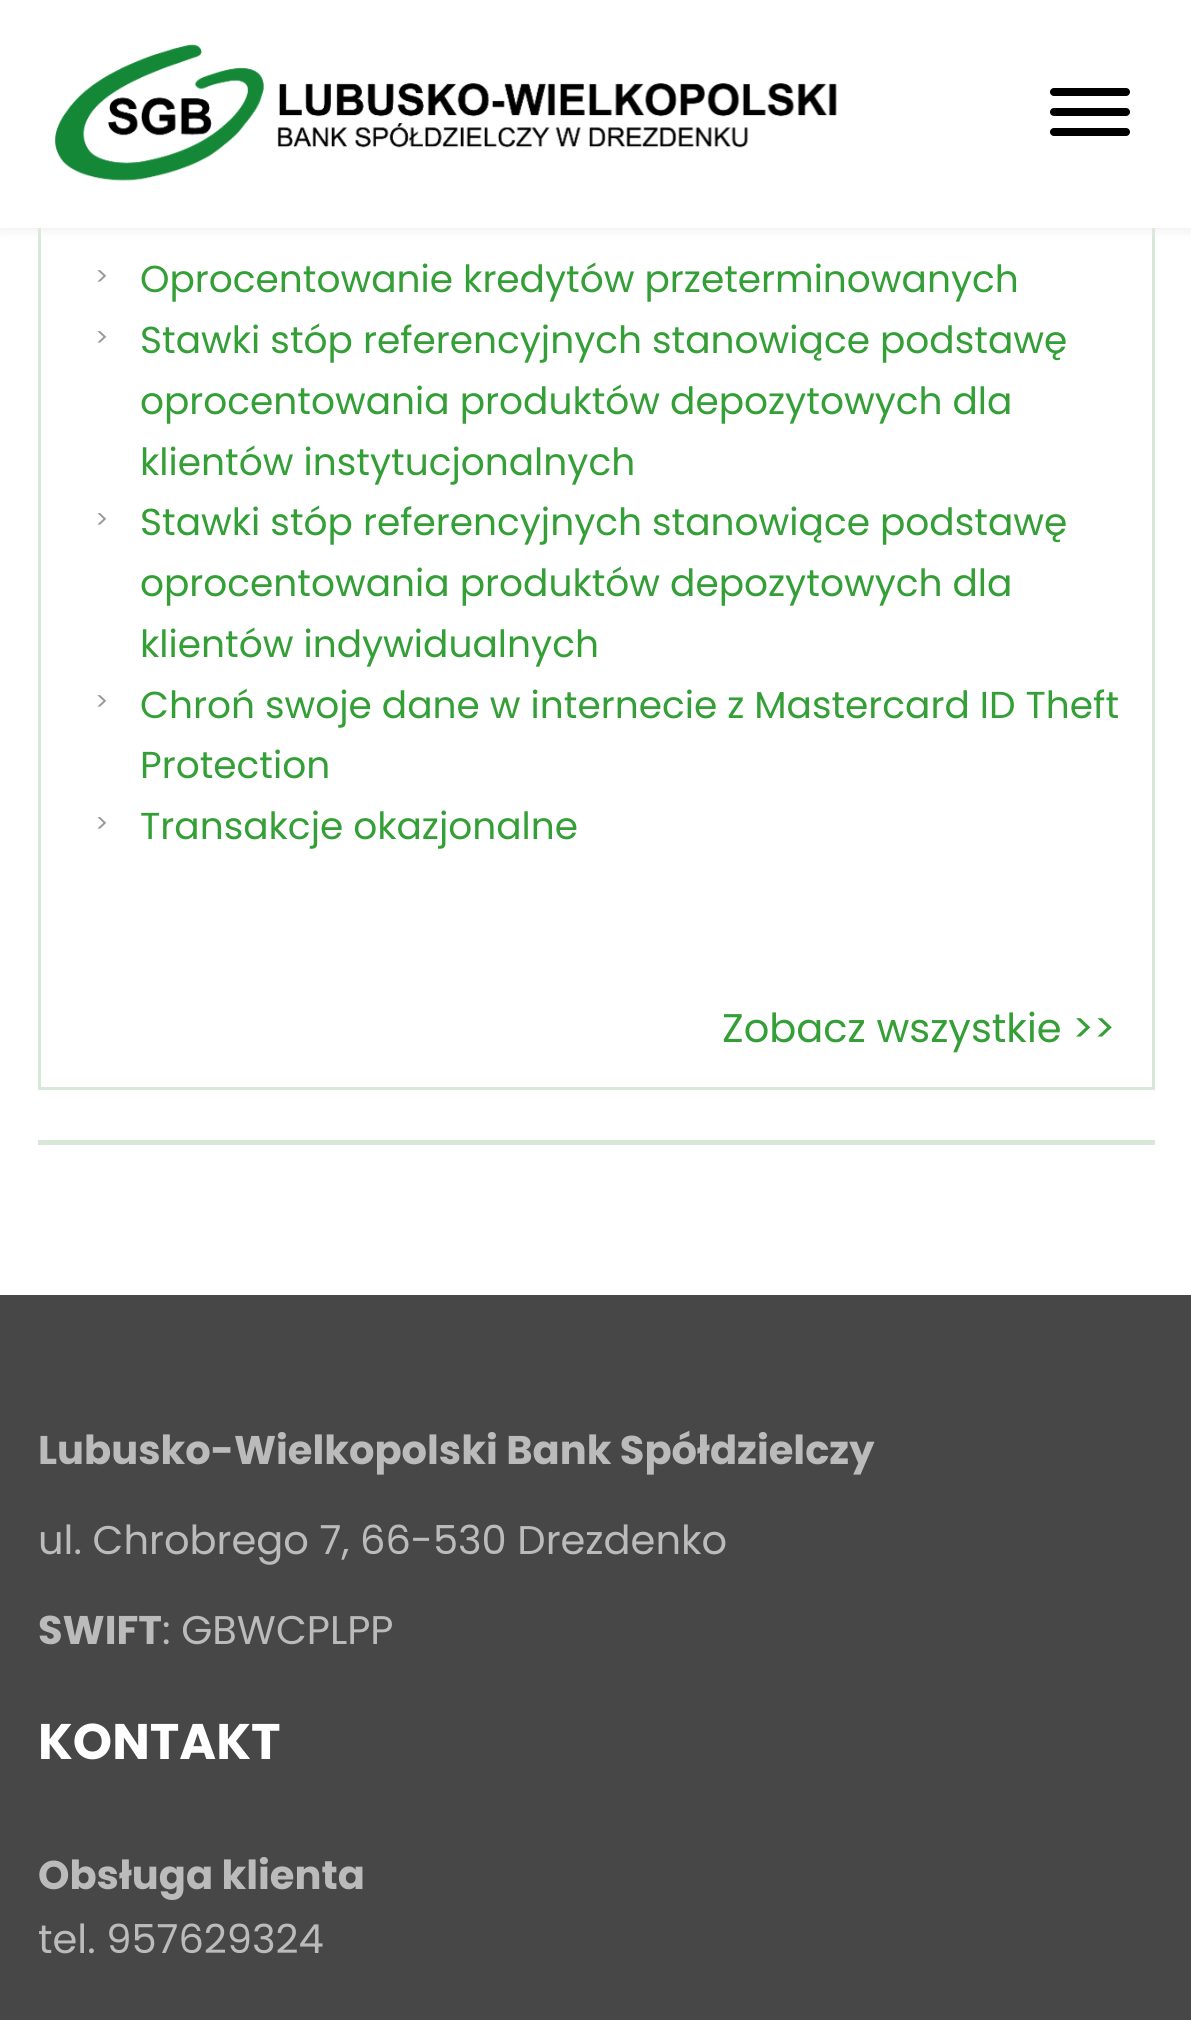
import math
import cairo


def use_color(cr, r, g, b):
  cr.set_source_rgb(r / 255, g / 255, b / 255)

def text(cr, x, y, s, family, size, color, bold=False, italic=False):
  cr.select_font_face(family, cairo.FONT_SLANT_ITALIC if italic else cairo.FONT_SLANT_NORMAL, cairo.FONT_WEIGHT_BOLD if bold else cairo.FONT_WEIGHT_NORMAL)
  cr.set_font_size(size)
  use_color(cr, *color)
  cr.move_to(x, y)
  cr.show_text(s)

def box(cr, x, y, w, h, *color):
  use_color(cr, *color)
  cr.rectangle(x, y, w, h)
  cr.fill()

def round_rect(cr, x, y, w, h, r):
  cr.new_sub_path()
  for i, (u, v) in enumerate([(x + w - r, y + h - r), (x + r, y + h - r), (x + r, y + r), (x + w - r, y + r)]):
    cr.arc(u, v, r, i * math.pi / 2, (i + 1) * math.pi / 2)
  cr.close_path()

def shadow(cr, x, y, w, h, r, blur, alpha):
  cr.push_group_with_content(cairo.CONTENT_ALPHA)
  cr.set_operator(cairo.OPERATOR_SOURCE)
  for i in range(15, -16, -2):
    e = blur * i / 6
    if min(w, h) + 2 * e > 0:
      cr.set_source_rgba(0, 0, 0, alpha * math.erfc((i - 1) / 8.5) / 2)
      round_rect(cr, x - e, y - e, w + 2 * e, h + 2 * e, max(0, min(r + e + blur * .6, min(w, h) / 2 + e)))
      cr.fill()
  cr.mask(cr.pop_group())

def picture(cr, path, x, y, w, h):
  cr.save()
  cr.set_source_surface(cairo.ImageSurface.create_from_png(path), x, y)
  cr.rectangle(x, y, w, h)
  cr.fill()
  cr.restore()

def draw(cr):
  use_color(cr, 255, 255, 255)
  cr.paint()
  cr.rectangle(39.5, -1.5, 1114, 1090)
  use_color(cr, 216, 232, 216)
  cr.set_line_width(3)
  cr.stroke()
  use_color(cr, 232, 232, 232)
  shadow(cr, 0, 0, 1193, 228, 0, 6, 1)
  box(cr, 0, 0, 1191, 228, 255, 255, 255)
  picture(cr, "img_01.png", 55, 44, 782, 138)
  use_color(cr, 0, 0, 0)
  round_rect(cr, 1050, 88, 80, 8, 4)
  cr.fill()
  round_rect(cr, 1050, 108, 80, 8, 4)
  cr.fill()
  round_rect(cr, 1050, 128, 80, 8, 4)
  cr.fill()
  box(cr, 38, 1140, 1117, 5, 216, 232, 216)
  box(cr, 0, 1295, 1191, 725, 71, 71, 71)
  text(cr, 95, 285, ">", "Poppins", 25, (153, 153, 153))
  text(cr, 140, 292, "Oprocentowanie kredytów przeterminowanych", "Poppins", 37.5, (52, 159, 54))
  text(cr, 95, 346, ">", "Poppins", 25, (153, 153, 153))
  text(cr, 140, 353, "Stawki stóp referencyjnych stanowiące podstawę", "Poppins", 37.5, (52, 159, 54))
  text(cr, 140, 414, "oprocentowania produktów depozytowych dla", "Poppins", 37.5, (52, 159, 54))
  text(cr, 140, 475, "klientów instytucjonalnych", "Poppins", 37.5, (52, 159, 54))
  text(cr, 95, 528, ">", "Poppins", 25, (153, 153, 153))
  text(cr, 140, 535, "Stawki stóp referencyjnych stanowiące podstawę", "Poppins", 37.5, (52, 159, 54))
  text(cr, 140, 596, "oprocentowania produktów depozytowych dla", "Poppins", 37.5, (52, 159, 54))
  text(cr, 140, 657, "klientów indywidualnych", "Poppins", 37.5, (52, 159, 54))
  text(cr, 95, 710, ">", "Poppins", 25, (153, 153, 153))
  text(cr, 140, 718, "Chroń swoje dane w internecie z Mastercard ID Theft", "Poppins", 37.5, (52, 159, 54))
  text(cr, 140, 778, "Protection", "Poppins", 37.5, (52, 159, 54))
  text(cr, 95, 832, ">", "Poppins", 25, (153, 153, 153))
  text(cr, 140, 839, "Transakcje okazjonalne", "Poppins", 37.5, (52, 159, 54))
  text(cr, 722, 1042, "Zobacz wszystkie >>", "Poppins", 40, (52, 159, 54))
  text(cr, 38, 1464, "Lubusko-Wielkopolski Bank Spółdzielczy", "Poppins", 40, (187, 187, 187), bold=True)
  text(cr, 38, 1554, "ul. Chrobrego 7, 66-530 Drezdenko", "Poppins", 40, (187, 187, 187))
  text(cr, 38, 1644, "SWIFT", "Poppins", 40, (187, 187, 187), bold=True)
  text(cr, 162, 1644, ": GBWCPLPP", "Poppins", 40, (187, 187, 187))
  text(cr, 38, 1759, "KONTAKT", "Poppins", 50, (255, 255, 255), bold=True)
  text(cr, 38, 1889, "Obsługa klienta", "Poppins", 40, (187, 187, 187), bold=True)
  text(cr, 38, 1953, "tel. 957629324", "Poppins", 40, (187, 187, 187))


surface = cairo.ImageSurface(cairo.FORMAT_RGB24, 1191, 2020)
cr = cairo.Context(surface)
options = cairo.FontOptions()
options.set_hint_metrics(cairo.HINT_METRICS_OFF)
options.set_hint_style(cairo.HINT_STYLE_NONE)
cr.set_font_options(options)
cr.set_miter_limit(4)
draw(cr)
surface.write_to_png("out.png")
